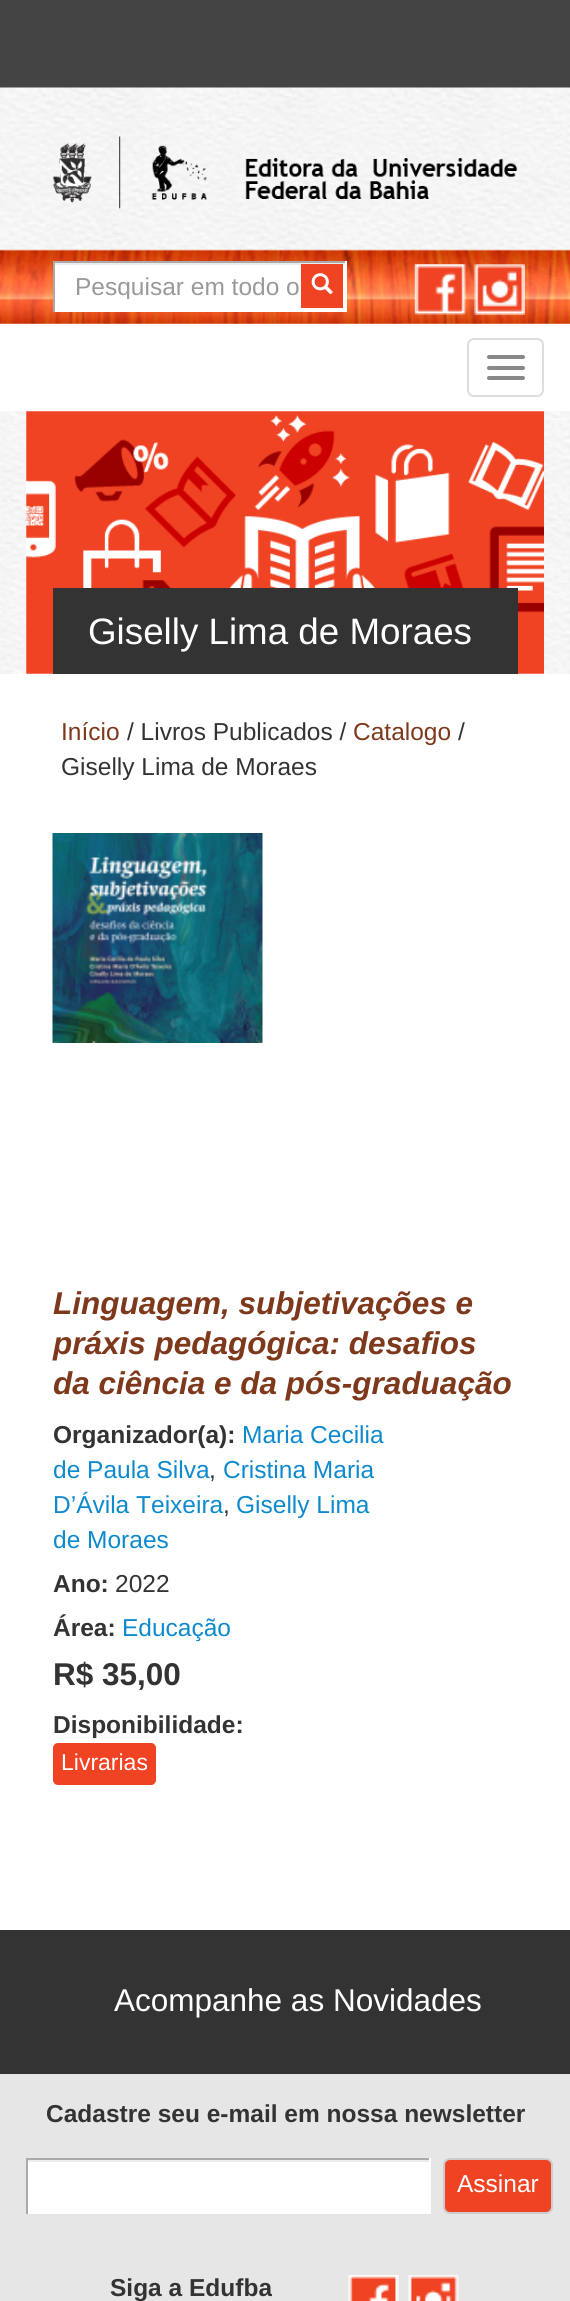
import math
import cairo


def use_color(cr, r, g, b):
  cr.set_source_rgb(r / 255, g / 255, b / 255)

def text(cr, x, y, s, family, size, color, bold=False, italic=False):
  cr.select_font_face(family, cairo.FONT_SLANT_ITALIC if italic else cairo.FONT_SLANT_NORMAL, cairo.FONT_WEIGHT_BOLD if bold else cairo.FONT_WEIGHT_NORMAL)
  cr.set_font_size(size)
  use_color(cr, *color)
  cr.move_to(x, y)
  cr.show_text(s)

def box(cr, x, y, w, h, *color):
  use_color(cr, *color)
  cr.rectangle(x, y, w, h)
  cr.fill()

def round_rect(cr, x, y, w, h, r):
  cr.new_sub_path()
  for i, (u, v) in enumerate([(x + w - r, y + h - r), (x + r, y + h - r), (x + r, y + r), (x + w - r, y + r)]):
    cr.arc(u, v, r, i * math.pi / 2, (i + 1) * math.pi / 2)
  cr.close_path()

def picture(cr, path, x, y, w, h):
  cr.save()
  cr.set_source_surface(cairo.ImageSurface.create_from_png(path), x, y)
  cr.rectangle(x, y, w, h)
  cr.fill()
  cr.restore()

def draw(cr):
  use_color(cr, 255, 255, 255)
  cr.paint()
  picture(cr, "img_01.png", 0, 323, 570, 351)
  box(cr, 0, 0, 570, 88, 68, 68, 68)
  picture(cr, "img_02.png", 0, 87, 570, 237)
  picture(cr, "img_03.png", 52, 136, 466, 73)
  box(cr, 55, 265, 290, 47, 255, 255, 255)
  box(cr, 54, 263, 291, 2, 236, 236, 236)
  box(cr, 53, 261, 294, 2, 170, 170, 170)
  box(cr, 345, 261, 2, 51, 255, 255, 255)
  box(cr, 53, 261, 2, 51, 170, 170, 170)
  box(cr, 301, 264, 42, 44, 239, 67, 35)
  picture(cr, "img_04.png", 311, 273, 22, 22)
  picture(cr, "img_05.png", 414, 264, 52, 51)
  picture(cr, "img_06.png", 474, 264, 51, 51)
  box(cr, 0, 324, 570, 87, 255, 255, 255)
  round_rect(cr, 468, 339, 75, 57, 6)
  use_color(cr, 221, 221, 221)
  cr.stroke()
  use_color(cr, 136, 136, 136)
  round_rect(cr, 487, 355, 38, 4, 2)
  cr.fill()
  round_rect(cr, 487, 366, 38, 4, 2)
  cr.fill()
  round_rect(cr, 487, 376, 38, 4, 2)
  cr.fill()
  box(cr, 26, 411, 518, 263, 255, 255, 255)
  picture(cr, "img_07.png", 26, 411, 518, 263)
  box(cr, 53, 588, 465, 86, 51, 51, 51)
  picture(cr, "img_08.png", 52, 833, 211, 210)
  use_color(cr, 239, 67, 35)
  round_rect(cr, 53, 1743, 103, 42, 5)
  cr.fill()
  box(cr, 0, 1930, 570, 144, 51, 51, 51)
  box(cr, 0, 2074, 570, 227, 230, 230, 230)
  box(cr, 28, 2162, 401, 52, 255, 255, 255)
  box(cr, 28, 2160, 401, 2, 236, 236, 236)
  box(cr, 26, 2158, 405, 2, 170, 170, 170)
  box(cr, 429, 2158, 2, 56, 255, 255, 255)
  box(cr, 26, 2158, 2, 56, 170, 170, 170)
  use_color(cr, 239, 67, 35)
  round_rect(cr, 444, 2159, 108, 54, 6)
  cr.fill_preserve()
  use_color(cr, 204, 204, 204)
  cr.stroke()
  picture(cr, "img_09.png", 348, 2275, 51, 26)
  picture(cr, "img_10.png", 408, 2275, 51, 26)
  cr.save()
  cr.rectangle(75, 271, 249, 28)
  cr.clip()
  text(cr, 75, 295, "Pesquisar em todo o", "Liberation Sans", 24.5, (153, 153, 153))
  cr.restore()
  text(cr, 88, 644, "Giselly Lima de Moraes", "Liberation Sans", 36.75, (255, 255, 255))
  text(cr, 61, 740, "Início", "Liberation Sans", 24.5, (126, 56, 27))
  text(cr, 127, 740, "/ Livros Publicados /", "Liberation Sans", 24.5, (51, 51, 51))
  text(cr, 353, 740, "Catalogo", "Liberation Sans", 24.5, (126, 56, 27))
  text(cr, 458, 740, "/", "Liberation Sans", 24.5, (51, 51, 51))
  text(cr, 61, 775, "Giselly Lima de Moraes", "Liberation Sans", 24.5, (51, 51, 51))
  text(cr, 53, 1314, "Linguagem, subjetivações e", "Liberation Sans", 31.5, (126, 56, 27), bold=True, italic=True)
  text(cr, 53, 1354, "práxis pedagógica: desafios", "Liberation Sans", 31.5, (126, 56, 27), bold=True, italic=True)
  text(cr, 53, 1394, "da ciência e da pós-graduação", "Liberation Sans", 31.5, (126, 56, 27), bold=True, italic=True)
  text(cr, 53, 1443, "Organizador(a):", "Liberation Sans", 24.5, (51, 51, 51), bold=True)
  text(cr, 242, 1443, "Maria Cecilia", "Liberation Sans", 24.5, (13, 138, 205))
  text(cr, 53, 1478, "de Paula Silva", "Liberation Sans", 24.5, (13, 138, 205))
  text(cr, 209, 1478, ",", "Liberation Sans", 24.5, (51, 51, 51))
  text(cr, 223, 1478, "Cristina Maria", "Liberation Sans", 24.5, (13, 138, 205))
  text(cr, 53, 1513, "D’Ávila Teixeira", "Liberation Sans", 24.5, (13, 138, 205))
  text(cr, 223, 1513, ",", "Liberation Sans", 24.5, (51, 51, 51))
  text(cr, 236, 1513, "Giselly Lima", "Liberation Sans", 24.5, (13, 138, 205))
  text(cr, 53, 1548, "de Moraes", "Liberation Sans", 24.5, (13, 138, 205))
  text(cr, 53, 1592, "Ano:", "Liberation Sans", 24.5, (51, 51, 51), bold=True)
  text(cr, 115, 1592, "2022", "Liberation Sans", 24.5, (51, 51, 51))
  text(cr, 53, 1636, "Área:", "Liberation Sans", 24.5, (51, 51, 51), bold=True)
  text(cr, 122, 1636, "Educação", "Liberation Sans", 24.5, (13, 138, 205))
  text(cr, 53, 1685, "R$ 35,00", "Liberation Sans", 31.5, (51, 51, 51), bold=True)
  text(cr, 53, 1733, "Disponibilidade:", "Liberation Sans", 24.5, (51, 51, 51), bold=True)
  text(cr, 61, 1770, "Livrarias", "Liberation Sans", 23, (255, 255, 255))
  text(cr, 114, 2011, "Acompanhe as Novidades", "Liberation Sans", 31.5, (255, 255, 255))
  text(cr, 46, 2122, "Cadastre seu e-mail em nossa newsletter", "Liberation Sans", 24.5, (51, 51, 51), bold=True)
  text(cr, 457, 2192, "Assinar", "Liberation Sans", 24.5, (255, 255, 255))
  text(cr, 110, 2296, "Siga a Edufba", "Liberation Sans", 24.5, (51, 51, 51), bold=True)


surface = cairo.ImageSurface(cairo.FORMAT_RGB24, 570, 2301)
cr = cairo.Context(surface)
options = cairo.FontOptions()
options.set_hint_metrics(cairo.HINT_METRICS_OFF)
options.set_hint_style(cairo.HINT_STYLE_NONE)
cr.set_font_options(options)
cr.set_miter_limit(4)
draw(cr)
surface.write_to_png("out.png")
